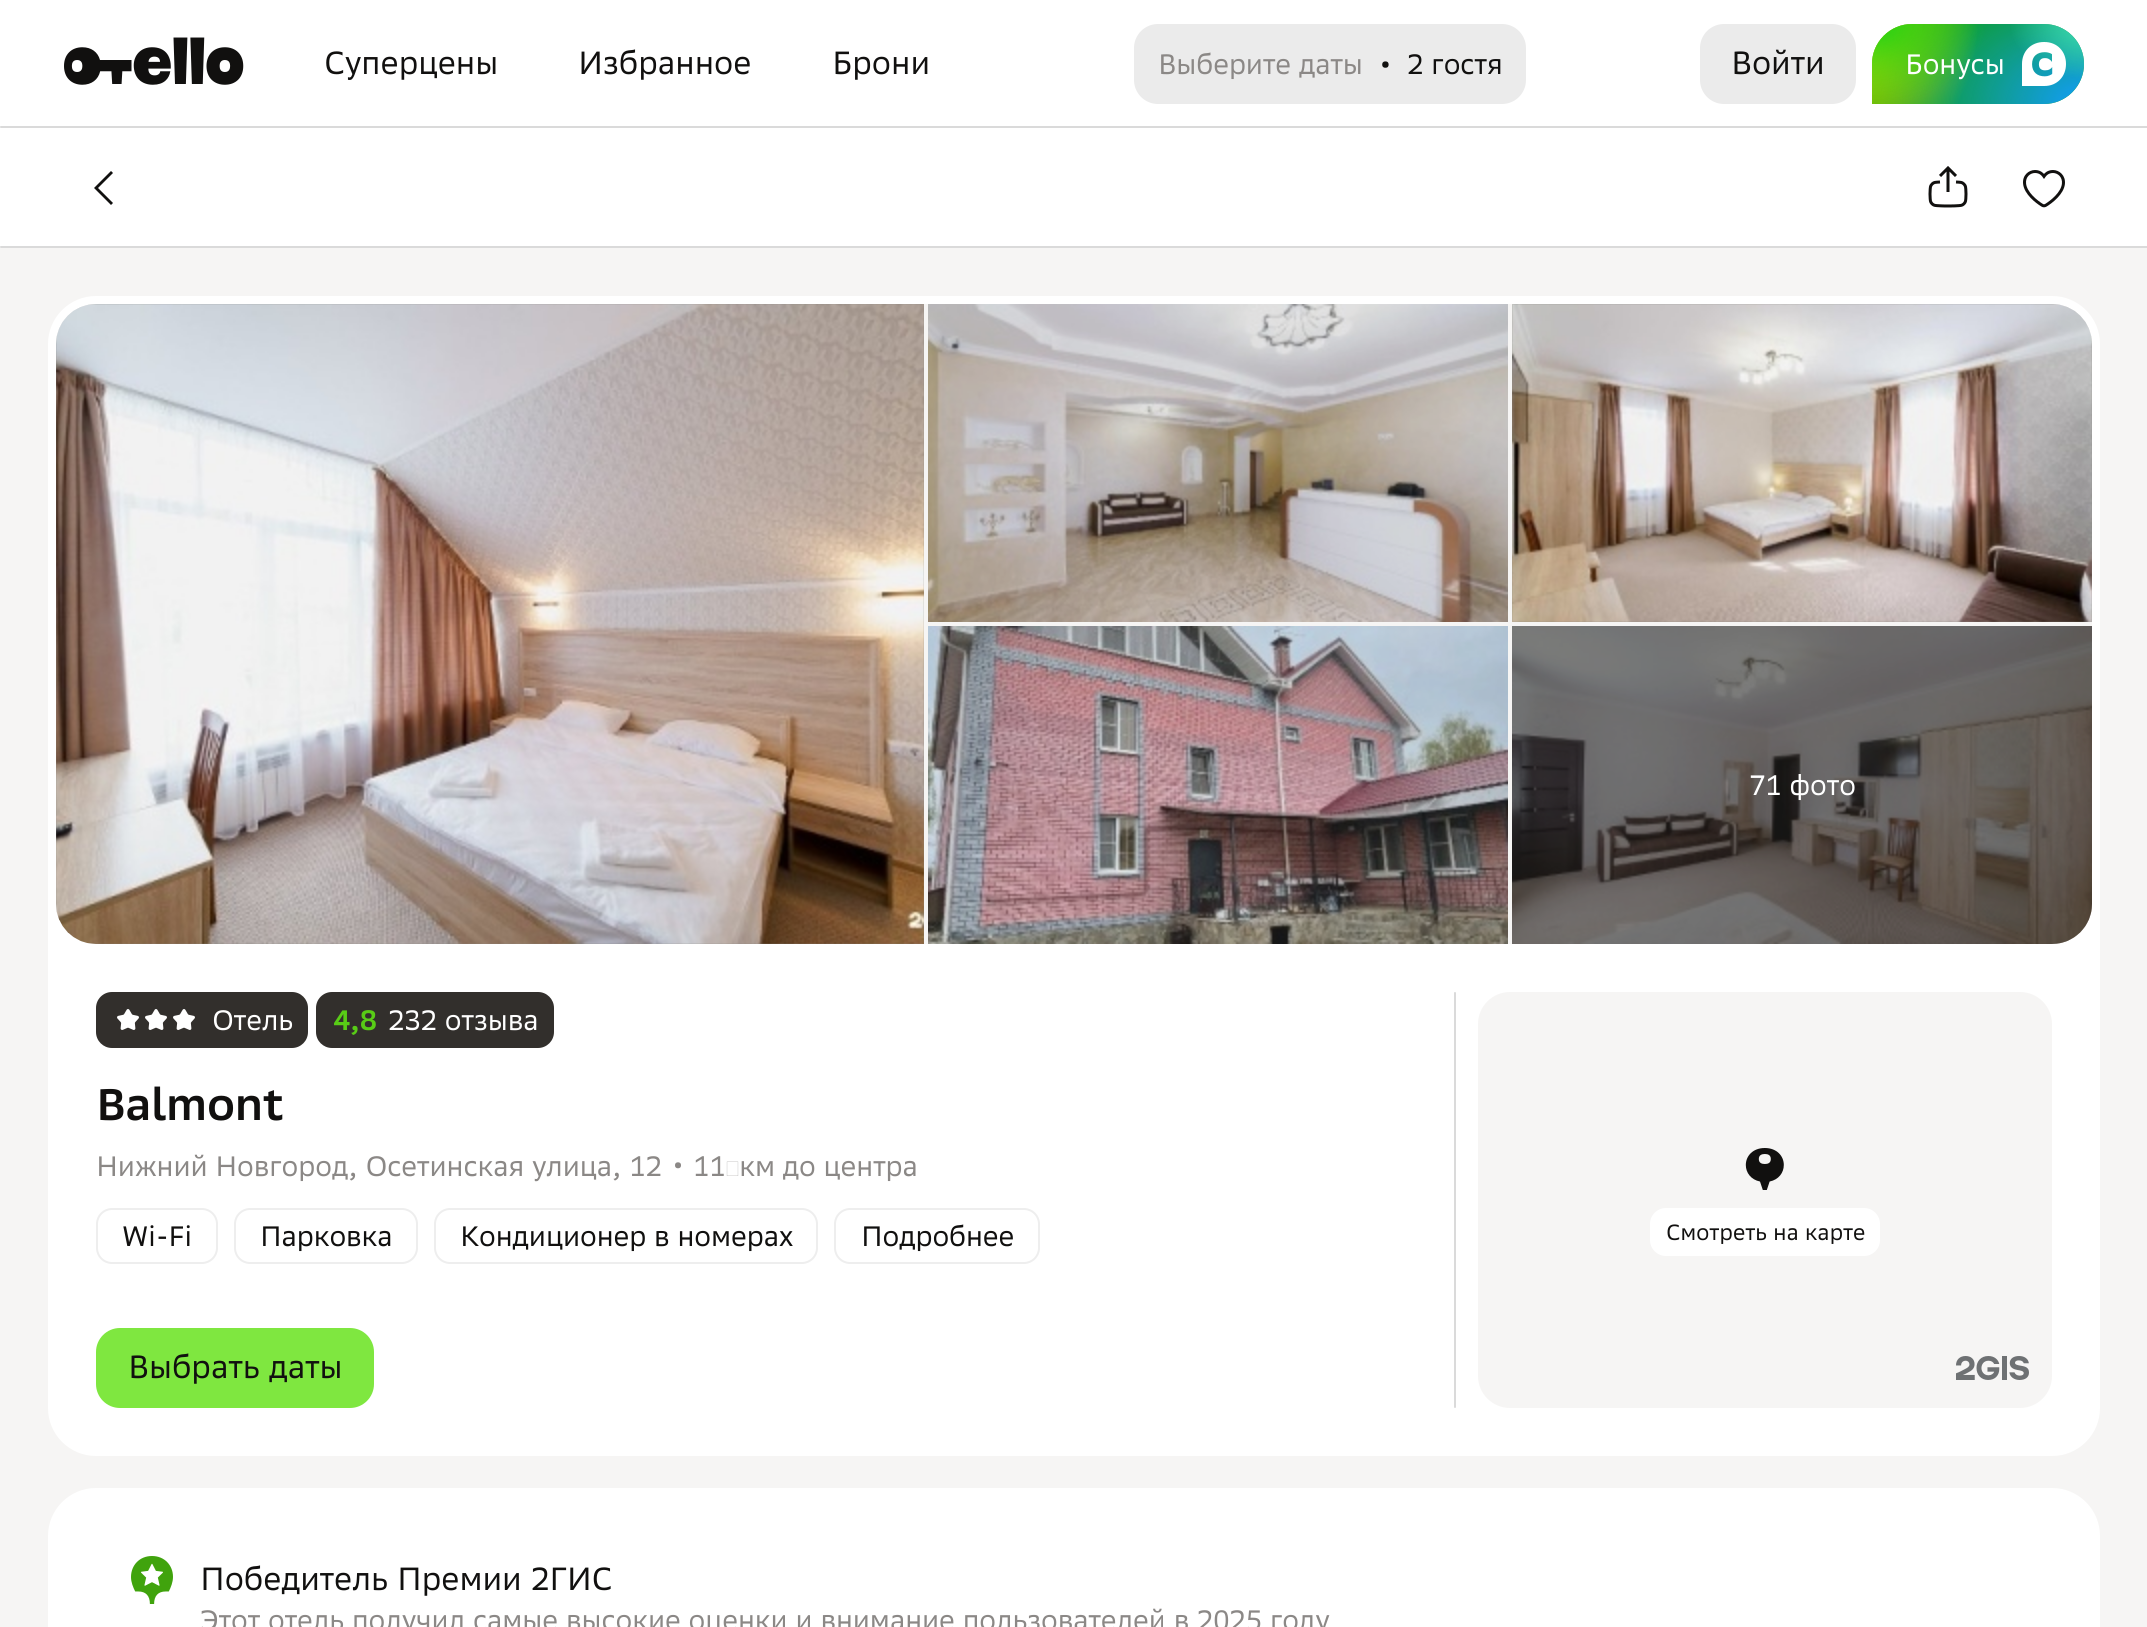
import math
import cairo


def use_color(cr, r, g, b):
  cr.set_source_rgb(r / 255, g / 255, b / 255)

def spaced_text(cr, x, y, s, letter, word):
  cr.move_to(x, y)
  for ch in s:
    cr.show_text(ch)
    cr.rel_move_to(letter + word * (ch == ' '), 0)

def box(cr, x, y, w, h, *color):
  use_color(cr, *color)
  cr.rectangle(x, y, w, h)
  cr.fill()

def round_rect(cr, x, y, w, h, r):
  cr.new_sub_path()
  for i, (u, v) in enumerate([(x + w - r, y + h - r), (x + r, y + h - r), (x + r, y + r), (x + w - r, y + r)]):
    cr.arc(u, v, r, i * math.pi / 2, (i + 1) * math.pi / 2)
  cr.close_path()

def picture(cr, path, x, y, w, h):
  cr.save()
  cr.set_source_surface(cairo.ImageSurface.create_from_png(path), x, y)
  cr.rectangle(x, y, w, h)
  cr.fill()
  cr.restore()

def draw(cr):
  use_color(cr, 246, 245, 244)
  cr.paint()
  box(cr, 0, 0, 2147, 248, 255, 255, 255)
  use_color(cr, 218, 218, 218)
  round_rect(cr, 0, 126, 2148, 2, 1)
  cr.fill()
  picture(cr, "img_01.png", 64, 37, 180, 48)
  use_color(cr, 235, 235, 235)
  round_rect(cr, 1134, 24, 392, 80, 24)
  cr.fill()
  round_rect(cr, 1700, 24, 156, 80, 24)
  cr.fill()
  use_color(cr, 12, 156, 12)
  cr.new_path()
  cr.move_to(1912, 24)
  cr.line_to(2044, 24)
  cr.curve_to(2066, 24, 2084, 42, 2084, 64)
  cr.curve_to(2084, 86, 2066, 104, 2044, 104)
  cr.line_to(1872, 104)
  cr.line_to(1872, 64)
  cr.curve_to(1872, 42, 1890, 24, 1912, 24)
  cr.close_path()
  cr.fill()
  gradient = cairo.RadialGradient(0, 0, 0, 0, 0, 1)
  gradient.set_matrix(cairo.Matrix(1 / 208, 0, 0, 1 / 147, -1 * 2084 / 208, -1 * 104 / 147))
  gradient.add_color_stop_rgba(0, 0.071, 0.616, 0.98, 1)
  gradient.add_color_stop_rgba(1, 0.071, 0.616, 0.98, 0)
  cr.set_source(gradient)
  cr.new_path()
  cr.move_to(1912, 24)
  cr.line_to(2044, 24)
  cr.curve_to(2066, 24, 2084, 42, 2084, 64)
  cr.curve_to(2084, 86, 2066, 104, 2044, 104)
  cr.line_to(1872, 104)
  cr.line_to(1872, 64)
  cr.curve_to(1872, 42, 1890, 24, 1912, 24)
  cr.close_path()
  cr.fill()
  gradient = cairo.RadialGradient(0, 0, 0, 0, 0, 1)
  gradient.set_matrix(cairo.Matrix(1 / 82, 0, 0, 1 / 55, -1 * 2092 / 82, -1 * 24 / 55))
  gradient.add_color_stop_rgba(0, 0.259, 0.89, 0.706, 1)
  gradient.add_color_stop_rgba(1, 0.259, 0.89, 0.706, 0)
  cr.set_source(gradient)
  cr.new_path()
  cr.move_to(1912, 24)
  cr.line_to(2044, 24)
  cr.curve_to(2066, 24, 2084, 42, 2084, 64)
  cr.curve_to(2084, 86, 2066, 104, 2044, 104)
  cr.line_to(1872, 104)
  cr.line_to(1872, 64)
  cr.curve_to(1872, 42, 1890, 24, 1912, 24)
  cr.close_path()
  cr.fill()
  gradient = cairo.RadialGradient(0, 0, 0, 0, 0, 1)
  gradient.set_matrix(cairo.Matrix(1 / 115, 0, 0, 1 / 141, -1 * 1863 / 115, -1 * 24 / 141))
  gradient.add_color_stop_rgba(0, 0.98, 0.929, 0.02, 1)
  gradient.add_color_stop_rgba(1, 0.98, 0.929, 0.02, 0)
  cr.set_source(gradient)
  cr.new_path()
  cr.move_to(1912, 24)
  cr.line_to(2044, 24)
  cr.curve_to(2066, 24, 2084, 42, 2084, 64)
  cr.curve_to(2084, 86, 2066, 104, 2044, 104)
  cr.line_to(1872, 104)
  cr.line_to(1872, 64)
  cr.curve_to(1872, 42, 1890, 24, 1912, 24)
  cr.close_path()
  cr.fill()
  gradient = cairo.RadialGradient(0, 0, 0, 0, 0, 1)
  gradient.set_matrix(cairo.Matrix(1 / 114, 0, 0, 1 / 81, -1 * 1872 / 114, -1 * 24 / 81))
  gradient.add_color_stop_rgba(0, 0.082, 0.816, 0.082, 1)
  gradient.add_color_stop_rgba(1, 0.082, 0.816, 0.082, 0)
  cr.set_source(gradient)
  cr.new_path()
  cr.move_to(1912, 24)
  cr.line_to(2044, 24)
  cr.curve_to(2066, 24, 2084, 42, 2084, 64)
  cr.curve_to(2084, 86, 2066, 104, 2044, 104)
  cr.line_to(1872, 104)
  cr.line_to(1872, 64)
  cr.curve_to(1872, 42, 1890, 24, 1912, 24)
  cr.close_path()
  cr.fill()
  picture(cr, "img_02.png", 2022, 42, 44, 44)
  use_color(cr, 218, 218, 218)
  round_rect(cr, 0, 246, 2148, 2, 1)
  cr.fill()
  use_color(cr, 17, 16, 15)
  cr.set_fill_rule(cairo.FILL_RULE_EVEN_ODD)
  cr.new_path()
  cr.move_to(111, 205)
  cr.line_to(113, 203)
  cr.line_to(98, 188)
  cr.line_to(113, 173)
  cr.line_to(111, 171)
  cr.line_to(94, 188)
  cr.close_path()
  cr.fill()
  picture(cr, "img_03.png", 1928, 166, 40, 42)
  picture(cr, "img_04.png", 2023, 170, 42, 38)
  use_color(cr, 255, 255, 255)
  round_rect(cr, 48, 296, 2052, 1160, 48)
  cr.fill()
  use_color(cr, 246, 245, 244)
  round_rect(cr, 56, 304, 2036, 640, 40)
  cr.fill()
  use_color(cr, 237, 235, 234)
  cr.new_path()
  cr.move_to(96, 304)
  cr.line_to(924, 304)
  cr.line_to(924, 944)
  cr.line_to(96, 944)
  cr.curve_to(74, 944, 56, 926, 56, 904)
  cr.line_to(56, 344)
  cr.curve_to(56, 322, 74, 304, 96, 304)
  cr.close_path()
  cr.fill()
  picture(cr, "img_05.png", 56, 304, 868, 640)
  cr.set_source_rgba(0.518, 0.514, 0.51, 0.16)
  cr.new_path()
  cr.move_to(57, 335)
  cr.line_to(56, 344)
  cr.line_to(56, 904)
  cr.line_to(57, 913)
  cr.close_path()
  cr.move_to(96, 304)
  cr.line_to(87, 305)
  cr.line_to(923, 305)
  cr.line_to(923, 943)
  cr.line_to(87, 943)
  cr.line_to(96, 944)
  cr.line_to(924, 944)
  cr.line_to(924, 304)
  cr.close_path()
  cr.fill()
  picture(cr, "img_06.png", 928, 304, 580, 318)
  picture(cr, "img_07.png", 928, 626, 580, 318)
  use_color(cr, 237, 235, 234)
  cr.new_path()
  cr.move_to(1512, 304)
  cr.line_to(2052, 304)
  cr.curve_to(2074, 304, 2092, 322, 2092, 344)
  cr.line_to(2092, 622)
  cr.line_to(1512, 622)
  cr.close_path()
  cr.fill()
  picture(cr, "img_08.png", 1512, 304, 580, 318)
  cr.set_source_rgba(0.518, 0.514, 0.51, 0.16)
  cr.set_fill_rule(cairo.FILL_RULE_WINDING)
  cr.new_path()
  cr.move_to(1512, 304)
  cr.line_to(1512, 622)
  cr.line_to(2092, 622)
  cr.line_to(2092, 344)
  cr.line_to(2091, 335)
  cr.line_to(2091, 621)
  cr.line_to(1513, 621)
  cr.line_to(1513, 305)
  cr.line_to(2061, 305)
  cr.line_to(2052, 304)
  cr.close_path()
  cr.fill()
  use_color(cr, 237, 235, 234)
  cr.new_path()
  cr.move_to(1512, 626)
  cr.line_to(2092, 626)
  cr.line_to(2092, 904)
  cr.curve_to(2092, 926, 2074, 944, 2052, 944)
  cr.line_to(1512, 944)
  cr.close_path()
  cr.fill()
  picture(cr, "img_09.png", 1512, 626, 580, 318)
  cr.set_source_rgba(0, 0, 0, 0.5)
  cr.new_path()
  cr.move_to(1512, 626)
  cr.line_to(2092, 626)
  cr.line_to(2092, 904)
  cr.curve_to(2092, 926, 2074, 944, 2052, 944)
  cr.line_to(1512, 944)
  cr.close_path()
  cr.fill()
  cr.save()
  cr.rectangle(1512, 626, 580, 318)
  cr.clip()
  cr.set_source_rgba(0.518, 0.514, 0.51, 0.16)
  cr.new_path()
  cr.move_to(1512, 626)
  cr.line_to(1512, 944)
  cr.line_to(2052, 944)
  cr.curve_to(2071, 944, 2088, 930, 2091, 912)
  cr.curve_to(2094, 896, 2092, 864, 2092, 858)
  cr.line_to(2092, 626)
  cr.close_path()
  cr.fill()
  cr.restore()
  use_color(cr, 50, 47, 44)
  round_rect(cr, 96, 992, 212, 56, 16)
  cr.fill()
  picture(cr, "img_10.png", 117, 1009, 22, 21)
  picture(cr, "img_10.png", 145, 1009, 22, 21)
  picture(cr, "img_10.png", 173, 1009, 22, 21)
  round_rect(cr, 316, 992, 238, 56, 16)
  cr.fill()
  round_rect(cr, 97, 1209, 120, 54, 15)
  use_color(cr, 238, 238, 238)
  cr.stroke()
  round_rect(cr, 235, 1209, 182, 54, 15)
  cr.stroke()
  round_rect(cr, 435, 1209, 382, 54, 15)
  cr.stroke()
  round_rect(cr, 835, 1209, 204, 54, 15)
  cr.stroke()
  use_color(cr, 127, 231, 64)
  round_rect(cr, 96, 1328, 278, 80, 24)
  cr.fill()
  use_color(cr, 218, 218, 218)
  round_rect(cr, 1454, 992, 2, 416, 1)
  cr.fill()
  use_color(cr, 246, 245, 244)
  round_rect(cr, 1478, 992, 574, 416, 32)
  cr.fill()
  picture(cr, "img_11.png", 1745, 1148, 39, 42)
  use_color(cr, 255, 255, 255)
  round_rect(cr, 1650, 1208, 230, 48, 16)
  cr.fill()
  picture(cr, "img_12.png", 1956, 1356, 73, 24)
  cr.new_path()
  cr.move_to(96, 1488)
  cr.line_to(2052, 1488)
  cr.curve_to(2078.5, 1488, 2100, 1509.5, 2100, 1536)
  cr.line_to(2100, 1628)
  cr.line_to(48, 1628)
  cr.line_to(48, 1536)
  cr.curve_to(48, 1509.5, 69.5, 1488, 96, 1488)
  cr.close_path()
  cr.fill()
  picture(cr, "img_13.png", 131, 1556, 42, 48)
  cr.select_font_face("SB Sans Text")
  cr.set_font_size(32)
  use_color(cr, 17, 16, 15)
  spaced_text(cr, 324, 74, "Суперцены", -0.5, 0)
  spaced_text(cr, 578, 74, "Избранное", -0.5, 0)
  spaced_text(cr, 832, 74, "Брони", -0.5, 0)
  cr.set_font_size(28)
  use_color(cr, 139, 136, 134)
  spaced_text(cr, 1158, 74, "Выберите даты", -0.55, 0)
  cr.set_font_size(32)
  use_color(cr, 17, 16, 15)
  spaced_text(cr, 1379, 76, "•", -0.5, 0)
  cr.set_font_size(28)
  spaced_text(cr, 1407, 74, "2 гостя", -0.55, 0)
  cr.set_font_size(32)
  spaced_text(cr, 1731, 74, "Войти", -0.5, 0)
  cr.set_font_size(28)
  use_color(cr, 255, 255, 255)
  spaced_text(cr, 1905, 74, "Бонусы", -0.55, 0)
  spaced_text(cr, 1749, 795, "71 фото", -0.55, 0)
  spaced_text(cr, 212, 1030, "Отель", -0.55, 0)
  cr.select_font_face("SB Sans Text SemiBold")
  use_color(cr, 88, 204, 22)
  spaced_text(cr, 333, 1030, "4,8", -0.55, 0)
  cr.select_font_face("SB Sans Text")
  use_color(cr, 255, 255, 255)
  spaced_text(cr, 388, 1030, "232 отзыва", -0.55, 0)
  cr.select_font_face("SB Sans Text SemiBold")
  cr.set_font_size(44)
  use_color(cr, 17, 16, 15)
  spaced_text(cr, 96, 1120, "Balmont", -0.75, 0)
  cr.select_font_face("SB Sans Text")
  cr.set_font_size(28)
  use_color(cr, 139, 136, 134)
  spaced_text(cr, 96, 1176, "Нижний Новгород, Осетинская улица, 12", -0.55, 0)
  cr.set_font_size(30)
  spaced_text(cr, 672, 1176, "•", -0.55, 0)
  cr.set_font_size(28)
  spaced_text(cr, 693, 1176, "11 км до центра", -0.55, 0)
  use_color(cr, 17, 16, 15)
  spaced_text(cr, 122, 1246, "Wi-Fi", -0.55, 0)
  spaced_text(cr, 260, 1246, "Парковка", -0.55, 0)
  spaced_text(cr, 460, 1246, "Кондиционер в номерах", -0.55, 0)
  spaced_text(cr, 861, 1246, "Подробнее", -0.55, 0)
  cr.set_font_size(32)
  spaced_text(cr, 128, 1378, "Выбрать даты", -0.5, 0)
  cr.set_font_size(22)
  spaced_text(cr, 1666, 1240, "Смотреть на карте", -0.3, 0)
  cr.set_font_size(32)
  spaced_text(cr, 200, 1590, "Победитель Премии 2ГИС", -0.5, 0)
  cr.set_font_size(28)
  use_color(cr, 139, 136, 134)
  spaced_text(cr, 200, 1630, "Этот отель получил самые высокие оценки и внимание пользователей в 2025 году", -0.55, 0)


surface = cairo.ImageSurface(cairo.FORMAT_RGB24, 2147, 1627)
cr = cairo.Context(surface)
options = cairo.FontOptions()
options.set_hint_metrics(cairo.HINT_METRICS_OFF)
options.set_hint_style(cairo.HINT_STYLE_NONE)
cr.set_font_options(options)
cr.set_miter_limit(4)
draw(cr)
surface.write_to_png("out.png")
